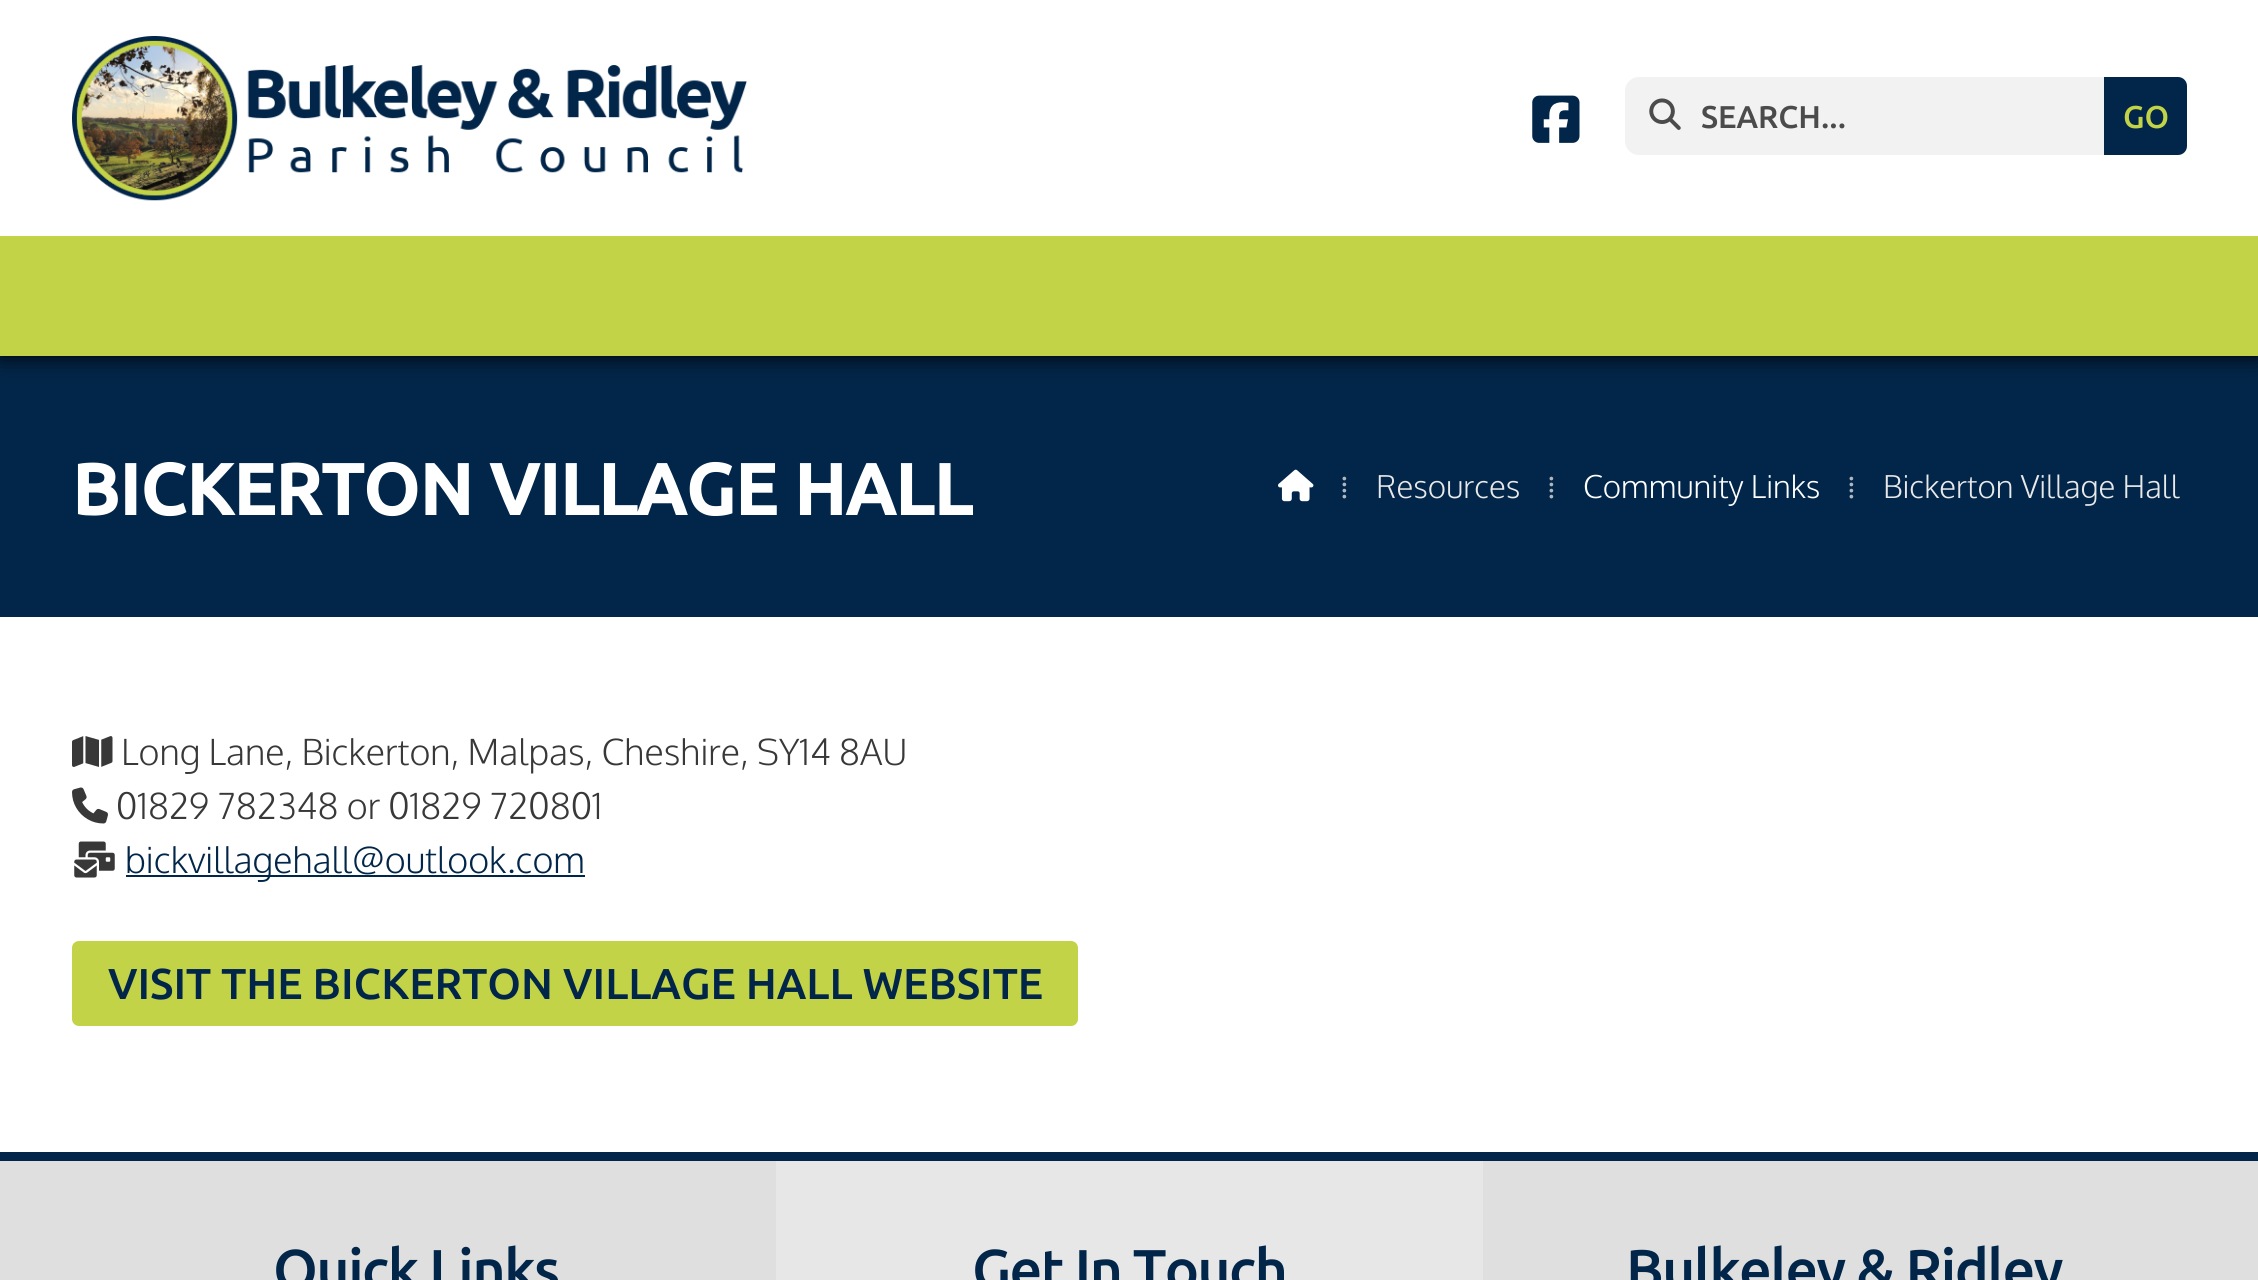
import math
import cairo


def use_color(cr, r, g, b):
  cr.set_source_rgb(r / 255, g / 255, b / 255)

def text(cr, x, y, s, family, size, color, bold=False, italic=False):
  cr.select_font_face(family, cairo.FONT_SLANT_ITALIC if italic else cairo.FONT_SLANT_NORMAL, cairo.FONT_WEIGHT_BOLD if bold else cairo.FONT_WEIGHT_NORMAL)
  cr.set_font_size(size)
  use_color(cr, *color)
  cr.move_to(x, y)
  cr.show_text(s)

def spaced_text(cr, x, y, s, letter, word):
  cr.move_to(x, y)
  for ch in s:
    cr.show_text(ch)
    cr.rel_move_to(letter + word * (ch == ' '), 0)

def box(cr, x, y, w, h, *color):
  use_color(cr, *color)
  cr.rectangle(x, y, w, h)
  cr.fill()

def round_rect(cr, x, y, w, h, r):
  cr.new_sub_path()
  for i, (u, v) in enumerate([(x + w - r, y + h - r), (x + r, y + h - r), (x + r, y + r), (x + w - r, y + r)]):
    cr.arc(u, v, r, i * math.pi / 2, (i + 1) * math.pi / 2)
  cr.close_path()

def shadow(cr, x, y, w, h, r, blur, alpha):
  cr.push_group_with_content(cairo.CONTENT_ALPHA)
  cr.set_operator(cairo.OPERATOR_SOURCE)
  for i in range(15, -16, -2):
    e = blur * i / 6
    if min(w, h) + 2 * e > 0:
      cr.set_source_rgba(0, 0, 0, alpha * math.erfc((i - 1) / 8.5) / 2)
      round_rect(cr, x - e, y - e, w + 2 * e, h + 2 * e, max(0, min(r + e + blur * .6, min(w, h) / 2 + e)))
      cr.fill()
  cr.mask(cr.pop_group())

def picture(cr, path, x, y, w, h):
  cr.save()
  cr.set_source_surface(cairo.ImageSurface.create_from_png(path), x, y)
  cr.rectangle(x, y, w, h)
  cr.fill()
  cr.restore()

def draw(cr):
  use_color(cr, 255, 255, 255)
  cr.paint()
  box(cr, 0, 356, 2258, 261, 2, 38, 73)
  use_color(cr, 0, 0, 0)
  shadow(cr, 0, 0, 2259, 356, 0, 11, 1)
  box(cr, 0, 0, 2258, 236, 255, 255, 255)
  picture(cr, "img_01.png", 72, 36, 675, 165)
  picture(cr, "img_02.png", 1532, 95, 48, 48)
  use_color(cr, 242, 242, 242)
  round_rect(cr, 1625, 77, 562, 78, 14)
  cr.fill()
  picture(cr, "img_03.png", 1649, 98, 32, 32)
  use_color(cr, 2, 38, 73)
  cr.new_path()
  cr.move_to(2104, 77)
  cr.line_to(2178, 77)
  cr.curve_to(2183, 77, 2187, 81, 2187, 86)
  cr.line_to(2187, 146)
  cr.curve_to(2187, 151, 2183, 155, 2178, 155)
  cr.line_to(2104, 155)
  cr.close_path()
  cr.fill()
  box(cr, 0, 236, 2258, 120, 194, 211, 71)
  picture(cr, "img_04.png", 1278, 469, 36, 33)
  picture(cr, "img_05.png", 72, 736, 41, 31)
  picture(cr, "img_06.png", 72, 787, 36, 37)
  picture(cr, "img_07.png", 74, 841, 41, 37)
  box(cr, 126, 875, 459, 2, 2, 38, 73)
  use_color(cr, 194, 211, 71)
  round_rect(cr, 72, 941, 1006, 85, 7)
  cr.fill()
  box(cr, 0, 1161, 2258, 119, 223, 223, 223)
  box(cr, 0, 1152, 2258, 9, 2, 38, 73)
  box(cr, 776, 1161, 707, 119, 231, 231, 231)
  text(cr, 1701, 128, "SEARCH...", "Ubuntu Medium", 31.5, (75, 75, 75))
  text(cr, 2123, 128, "GO", "Ubuntu Medium", 31.5, (194, 211, 71))
  text(cr, 72, 515, "BICKERTON VILLAGE HALL", "Ubuntu", 72, (255, 255, 255), bold=True)
  text(cr, 1340, 498, "⁞", "Liberation Serif", 31.5, (175, 184, 193))
  text(cr, 1376, 498, "Resources", "Oxygen Light", 31.5, (233, 233, 233))
  text(cr, 1547, 498, "⁞", "Liberation Serif", 31.5, (175, 184, 193))
  text(cr, 1583, 498, "Community Links", "Oxygen Light", 31.5, (255, 255, 255))
  text(cr, 1847, 498, "⁞", "Liberation Serif", 31.5, (175, 184, 193))
  text(cr, 1883, 498, "Bickerton Village Hall", "Oxygen Light", 31.5, (233, 233, 233))
  text(cr, 121, 765, "Long Lane, Bickerton, Malpas, Cheshire, SY14 8AU", "Oxygen Light", 36, (56, 56, 56))
  text(cr, 116, 819, "01829 782348 or 01829 720801", "Oxygen Light", 36, (56, 56, 56))
  text(cr, 125, 873, "bickvillagehall@outlook.com", "Oxygen Light", 36, (2, 38, 73))
  text(cr, 108, 999, "VISIT THE BICKERTON VILLAGE HALL WEBSITE", "Ubuntu Medium", 43.2, (2, 38, 73))
  cr.set_font_size(57.5)
  spaced_text(cr, 273, 1290, "Quick Links", -1.75, 0)
  spaced_text(cr, 972, 1290, "Get In Touch", -1.75, 0)
  spaced_text(cr, 1626, 1290, "Bulkeley & Ridley", -1.75, 0)


surface = cairo.ImageSurface(cairo.FORMAT_RGB24, 2258, 1280)
cr = cairo.Context(surface)
options = cairo.FontOptions()
options.set_hint_metrics(cairo.HINT_METRICS_OFF)
options.set_hint_style(cairo.HINT_STYLE_NONE)
cr.set_font_options(options)
cr.set_miter_limit(4)
draw(cr)
surface.write_to_png("out.png")
